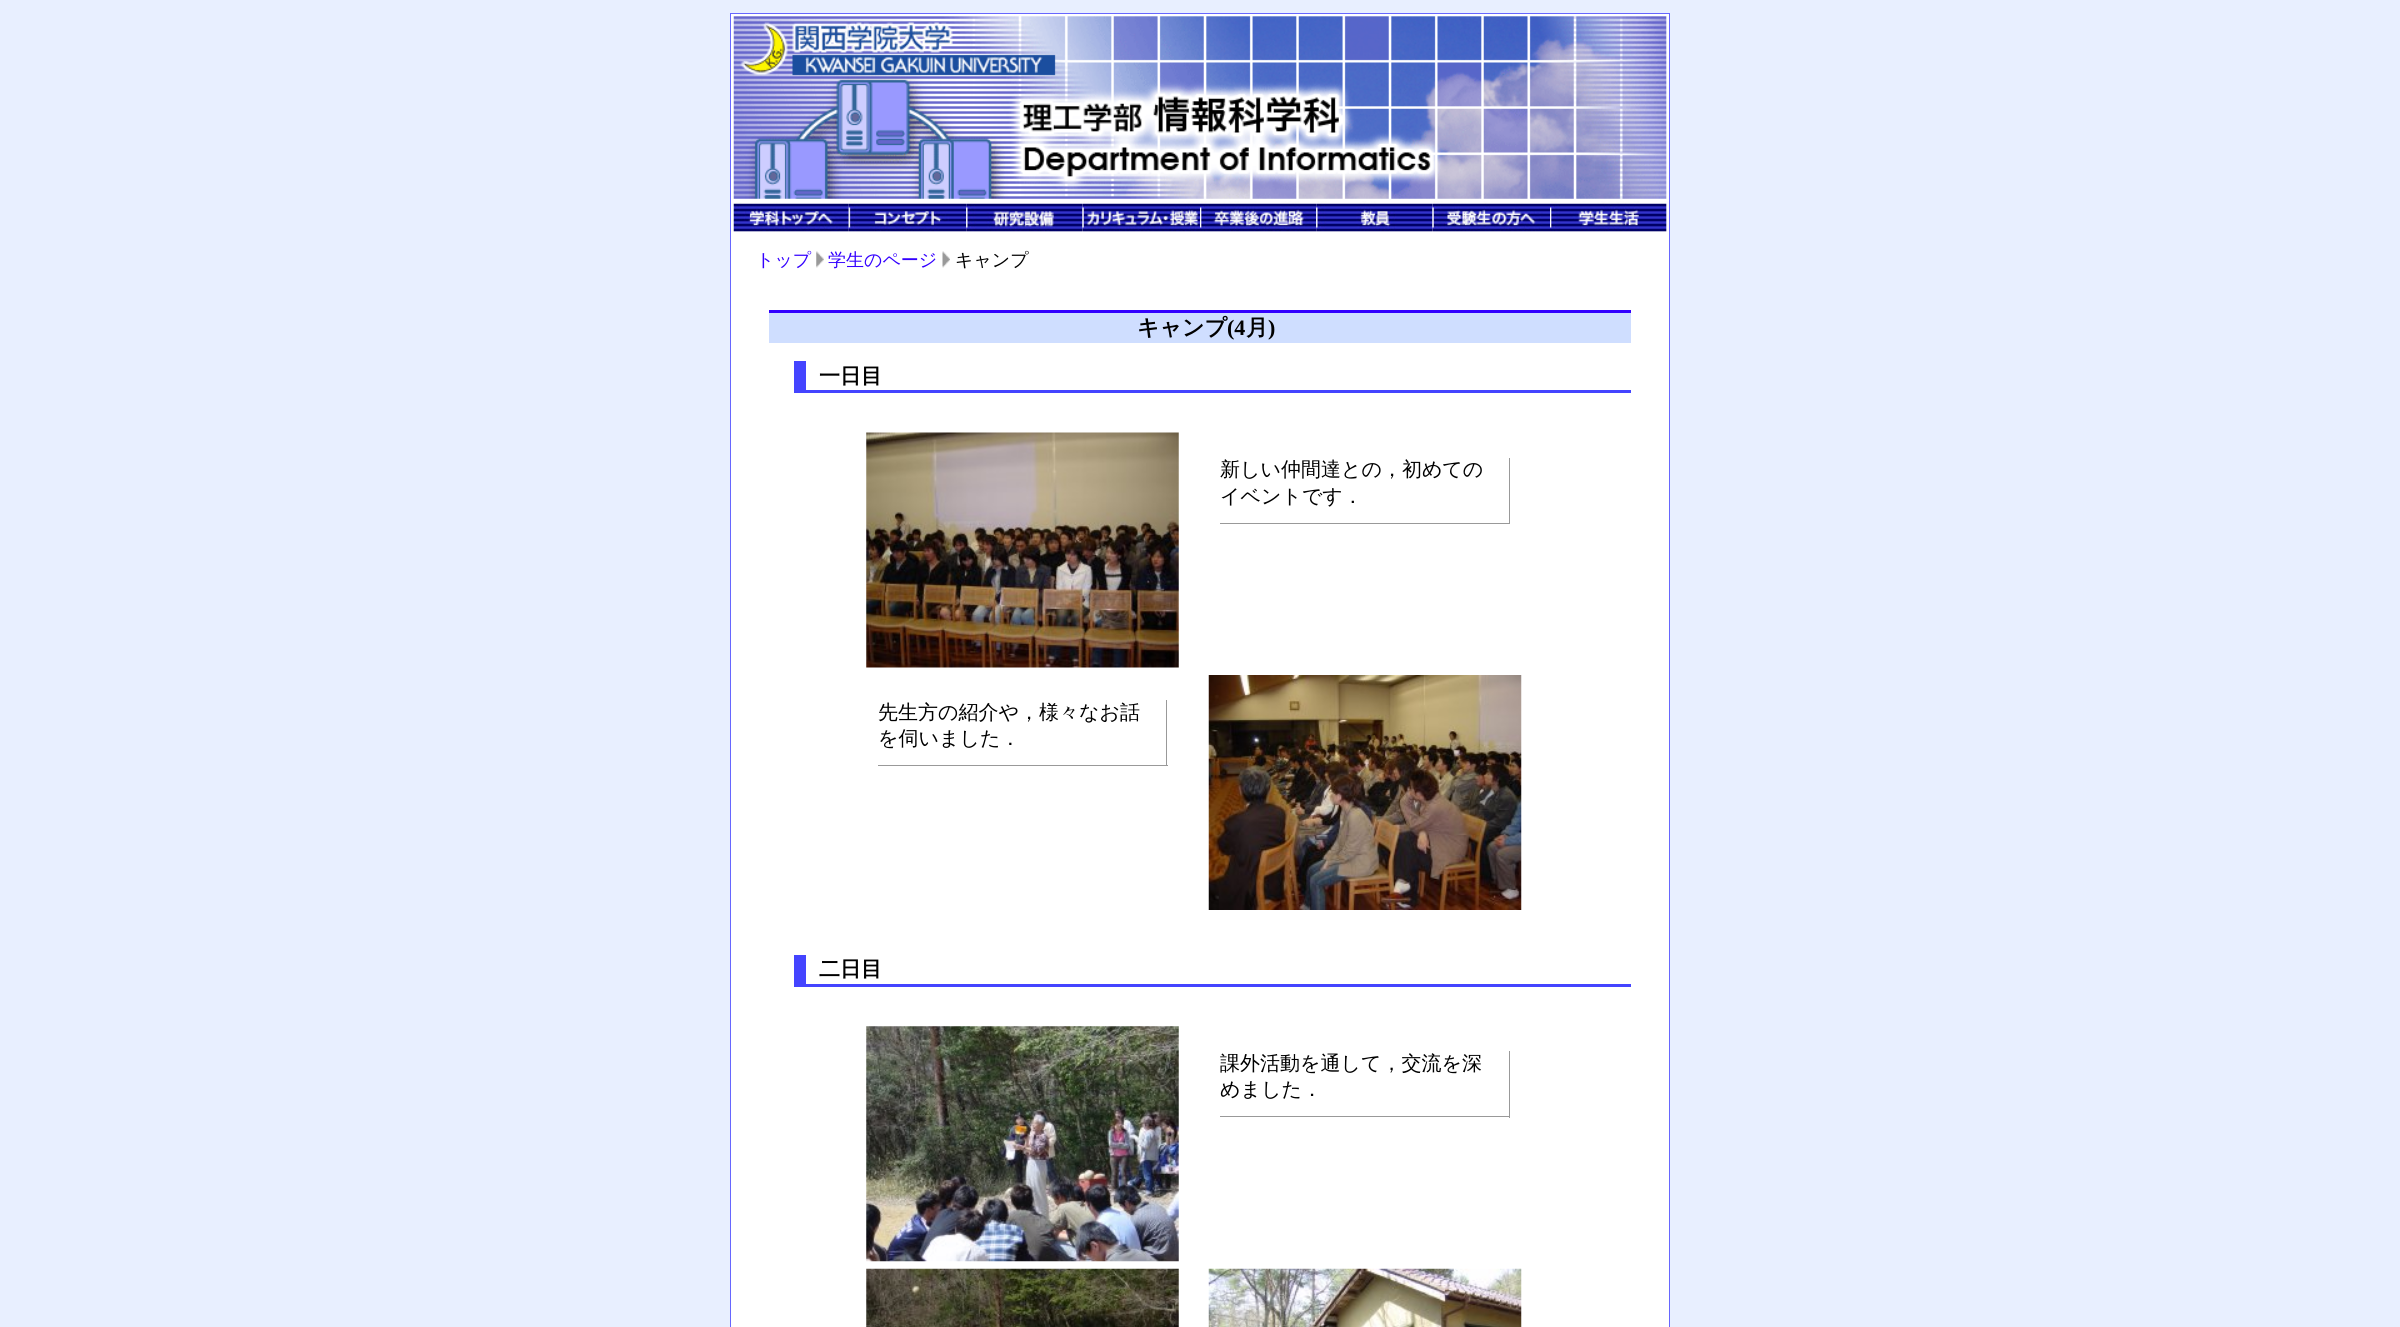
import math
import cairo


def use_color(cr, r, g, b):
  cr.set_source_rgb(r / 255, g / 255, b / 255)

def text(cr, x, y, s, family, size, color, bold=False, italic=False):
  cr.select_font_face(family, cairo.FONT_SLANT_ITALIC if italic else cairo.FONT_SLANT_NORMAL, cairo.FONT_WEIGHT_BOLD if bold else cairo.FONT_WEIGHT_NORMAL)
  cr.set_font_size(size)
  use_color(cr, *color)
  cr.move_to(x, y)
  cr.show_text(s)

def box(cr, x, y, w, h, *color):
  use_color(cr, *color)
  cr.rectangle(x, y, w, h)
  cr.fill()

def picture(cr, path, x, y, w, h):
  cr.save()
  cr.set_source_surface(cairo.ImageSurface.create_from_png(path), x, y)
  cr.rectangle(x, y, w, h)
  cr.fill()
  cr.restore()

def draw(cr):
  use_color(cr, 232, 239, 255)
  cr.paint()
  box(cr, 731, 14, 938, 1313, 255, 255, 255)
  picture(cr, "img_01.png", 733, 16, 934, 183)
  cr.rectangle(730.5, 13.5, 939, 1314)
  use_color(cr, 102, 102, 255)
  cr.set_line_width(1)
  cr.stroke()
  picture(cr, "img_02.png", 732, 202, 117, 30)
  picture(cr, "img_03.png", 848, 201, 119, 31)
  picture(cr, "img_04.png", 966, 201, 117, 31)
  picture(cr, "img_05.png", 1082, 201, 118, 31)
  picture(cr, "img_06.png", 1200, 201, 117, 31)
  picture(cr, "img_07.png", 1316, 201, 117, 31)
  picture(cr, "img_08.png", 1432, 201, 118, 31)
  picture(cr, "img_09.png", 1550, 201, 119, 31)
  picture(cr, "img_10.png", 816, 251, 8, 17)
  picture(cr, "img_11.png", 942, 251, 8, 17)
  box(cr, 769, 313, 862, 30, 207, 222, 255)
  box(cr, 769, 310, 862, 3, 51, 0, 255)
  box(cr, 806, 390, 825, 3, 68, 68, 255)
  box(cr, 794, 361, 12, 32, 68, 68, 255)
  picture(cr, "img_12.png", 866, 432, 313, 236)
  box(cr, 1509, 458, 1, 66, 153, 153, 153)
  box(cr, 1220, 523, 290, 1, 153, 153, 153)
  box(cr, 1166, 700, 1, 66, 153, 153, 153)
  box(cr, 878, 765, 290, 1, 153, 153, 153)
  picture(cr, "img_13.png", 1208, 675, 314, 235)
  box(cr, 794, 984, 837, 3, 68, 68, 255)
  box(cr, 794, 955, 12, 29, 68, 68, 255)
  picture(cr, "img_14.png", 866, 1026, 313, 236)
  box(cr, 1509, 1051, 1, 67, 153, 153, 153)
  box(cr, 1220, 1116, 290, 1, 153, 153, 153)
  picture(cr, "img_15.png", 866, 1268, 313, 59)
  picture(cr, "img_16.png", 1208, 1268, 314, 59)
  text(cr, 756, 266, "トップ", "WenQuanYi Zen Hei Medium", 18, (51, 0, 255))
  text(cr, 828, 266, "学生のページ", "WenQuanYi Zen Hei Medium", 18, (51, 0, 255))
  text(cr, 955, 266, "キャンプ", "WenQuanYi Zen Hei Medium", 18, (0, 0, 0))
  text(cr, 1137, 335, "キャンプ", "WenQuanYi Zen Hei", 22, (0, 0, 0), bold=True)
  text(cr, 1227, 335, "(4", "Liberation Serif", 22, (0, 0, 0), bold=True)
  text(cr, 1246, 335, "月", "WenQuanYi Zen Hei", 22, (0, 0, 0), bold=True)
  text(cr, 1268, 335, ")", "Liberation Serif", 22, (0, 0, 0), bold=True)
  text(cr, 819, 383, "一日目", "WenQuanYi Zen Hei", 21, (0, 0, 0), bold=True)
  text(cr, 1220, 476, "新しい仲間達との，初めての", "WenQuanYi Zen Hei Medium", 20, (0, 0, 0))
  text(cr, 1220, 503, "イベントです．", "WenQuanYi Zen Hei Medium", 20, (0, 0, 0))
  text(cr, 878, 719, "先生方の紹介や，様々なお話", "WenQuanYi Zen Hei Medium", 20, (0, 0, 0))
  text(cr, 878, 745, "を伺いました．", "WenQuanYi Zen Hei Medium", 20, (0, 0, 0))
  text(cr, 819, 976, "二日目", "WenQuanYi Zen Hei", 21, (0, 0, 0), bold=True)
  text(cr, 1220, 1070, "課外活動を通して，交流を深", "WenQuanYi Zen Hei Medium", 20, (0, 0, 0))
  text(cr, 1220, 1096, "めました．", "WenQuanYi Zen Hei Medium", 20, (0, 0, 0))


surface = cairo.ImageSurface(cairo.FORMAT_RGB24, 2400, 1327)
cr = cairo.Context(surface)
options = cairo.FontOptions()
options.set_hint_metrics(cairo.HINT_METRICS_OFF)
options.set_hint_style(cairo.HINT_STYLE_NONE)
cr.set_font_options(options)
cr.set_miter_limit(4)
draw(cr)
surface.write_to_png("out.png")
